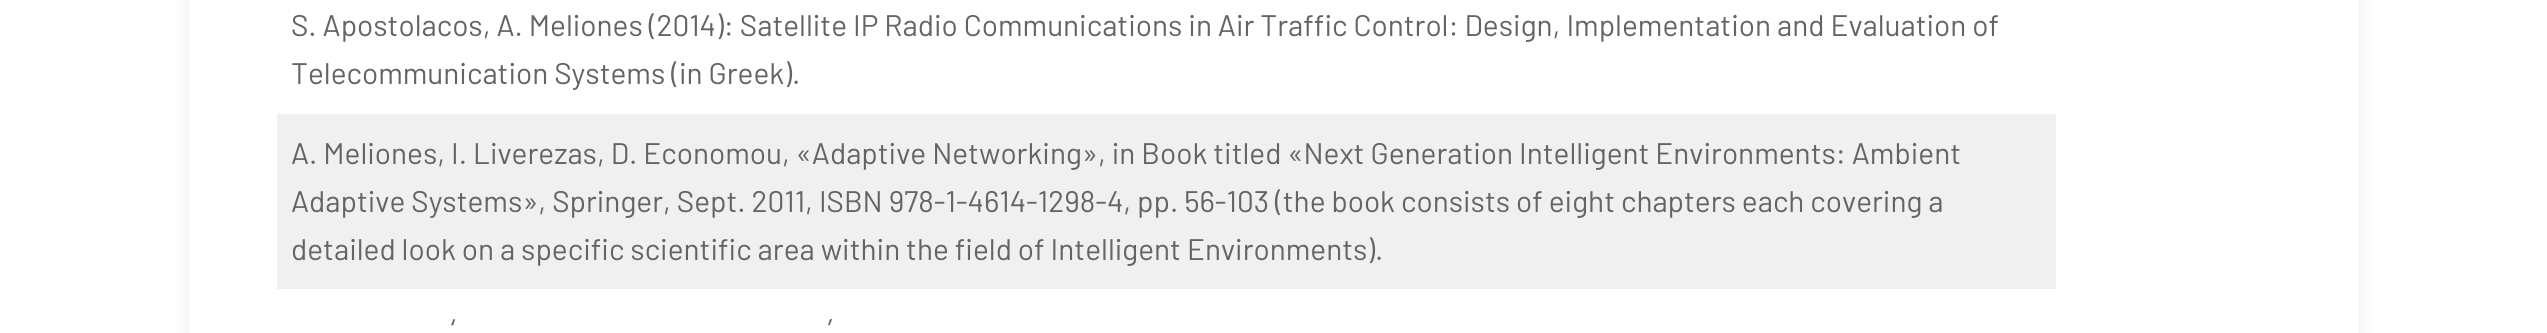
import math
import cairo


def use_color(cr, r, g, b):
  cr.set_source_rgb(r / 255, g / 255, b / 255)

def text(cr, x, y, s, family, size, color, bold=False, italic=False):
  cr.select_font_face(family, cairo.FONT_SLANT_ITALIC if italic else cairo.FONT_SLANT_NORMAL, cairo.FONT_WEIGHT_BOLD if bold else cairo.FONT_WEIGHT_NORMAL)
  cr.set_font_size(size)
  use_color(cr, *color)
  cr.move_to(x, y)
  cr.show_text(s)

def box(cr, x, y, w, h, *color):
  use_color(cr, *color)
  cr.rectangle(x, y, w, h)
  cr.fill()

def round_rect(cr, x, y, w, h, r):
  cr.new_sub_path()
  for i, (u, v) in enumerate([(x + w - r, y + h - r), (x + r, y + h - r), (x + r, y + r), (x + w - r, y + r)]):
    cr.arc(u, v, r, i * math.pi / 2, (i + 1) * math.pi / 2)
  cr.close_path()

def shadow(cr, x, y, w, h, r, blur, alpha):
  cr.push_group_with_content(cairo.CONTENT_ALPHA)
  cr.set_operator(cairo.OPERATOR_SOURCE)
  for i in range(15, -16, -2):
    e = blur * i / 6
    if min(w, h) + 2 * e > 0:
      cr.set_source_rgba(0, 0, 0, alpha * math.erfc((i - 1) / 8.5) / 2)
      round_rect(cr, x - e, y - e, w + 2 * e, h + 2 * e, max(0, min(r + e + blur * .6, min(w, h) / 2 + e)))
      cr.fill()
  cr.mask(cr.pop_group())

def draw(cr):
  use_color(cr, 255, 255, 255)
  cr.paint()
  cr.save()
  cr.set_fill_rule(cairo.FILL_RULE_EVEN_ODD)
  cr.new_path()
  cr.move_to(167, 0)
  cr.line_to(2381, 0)
  cr.line_to(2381, 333)
  cr.line_to(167, 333)
  cr.close_path()
  cr.move_to(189, -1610)
  cr.line_to(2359, -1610)
  cr.line_to(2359, 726)
  cr.line_to(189, 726)
  cr.close_path()
  cr.clip()
  use_color(cr, 30, 30, 30)
  shadow(cr, 189, -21, 2170, 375, 0, 7, 0.1)
  cr.restore()
  box(cr, 277, 114, 1779, 175, 240, 240, 240)
  text(cr, 291, 36, "S. Apostolacos, A. Meliones (2014): Satellite IP Radio Communications in Air Traffic Control: Design, Implementation and Evaluation of", "Barlow", 29.75, (100, 100, 100))
  text(cr, 291, 84, "Telecommunication Systems (in Greek).", "Barlow", 29.75, (100, 100, 100))
  text(cr, 291, 164, "A. Meliones, I. Liverezas, D. Economou, «Adaptive Networking», in Book titled «Next Generation Intelligent Environments: Ambient", "Barlow", 29.75, (100, 100, 100))
  text(cr, 291, 212, "Adaptive Systems», Springer, Sept. 2011, ISBN 978-1-4614-1298-4, pp. 56-103 (the book consists of eight chapters each covering a", "Barlow", 29.75, (100, 100, 100))
  text(cr, 291, 260, "detailed look on a specific scientific area within the field of Intelligent Environments).", "Barlow", 29.75, (100, 100, 100))
  text(cr, 451, 340, "‘", "Barlow", 29.75, (100, 100, 100))
  text(cr, 828, 340, "’", "Barlow", 29.75, (100, 100, 100))


surface = cairo.ImageSurface(cairo.FORMAT_RGB24, 2547, 333)
cr = cairo.Context(surface)
options = cairo.FontOptions()
options.set_hint_metrics(cairo.HINT_METRICS_OFF)
options.set_hint_style(cairo.HINT_STYLE_NONE)
cr.set_font_options(options)
cr.set_miter_limit(4)
draw(cr)
surface.write_to_png("out.png")
